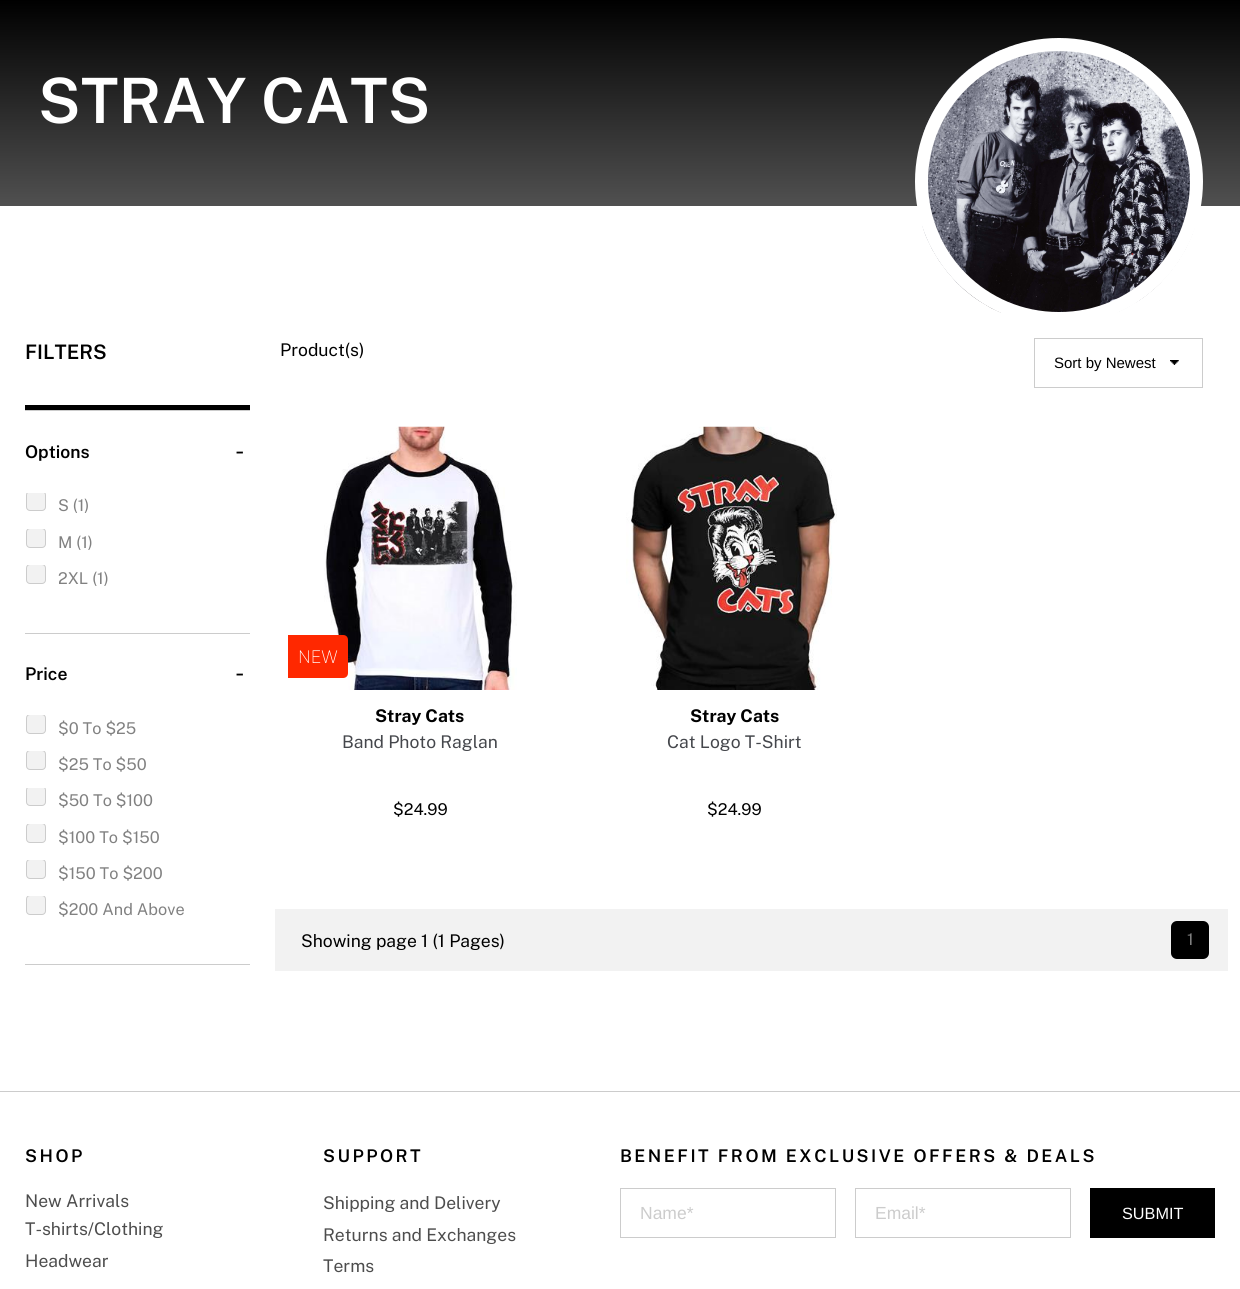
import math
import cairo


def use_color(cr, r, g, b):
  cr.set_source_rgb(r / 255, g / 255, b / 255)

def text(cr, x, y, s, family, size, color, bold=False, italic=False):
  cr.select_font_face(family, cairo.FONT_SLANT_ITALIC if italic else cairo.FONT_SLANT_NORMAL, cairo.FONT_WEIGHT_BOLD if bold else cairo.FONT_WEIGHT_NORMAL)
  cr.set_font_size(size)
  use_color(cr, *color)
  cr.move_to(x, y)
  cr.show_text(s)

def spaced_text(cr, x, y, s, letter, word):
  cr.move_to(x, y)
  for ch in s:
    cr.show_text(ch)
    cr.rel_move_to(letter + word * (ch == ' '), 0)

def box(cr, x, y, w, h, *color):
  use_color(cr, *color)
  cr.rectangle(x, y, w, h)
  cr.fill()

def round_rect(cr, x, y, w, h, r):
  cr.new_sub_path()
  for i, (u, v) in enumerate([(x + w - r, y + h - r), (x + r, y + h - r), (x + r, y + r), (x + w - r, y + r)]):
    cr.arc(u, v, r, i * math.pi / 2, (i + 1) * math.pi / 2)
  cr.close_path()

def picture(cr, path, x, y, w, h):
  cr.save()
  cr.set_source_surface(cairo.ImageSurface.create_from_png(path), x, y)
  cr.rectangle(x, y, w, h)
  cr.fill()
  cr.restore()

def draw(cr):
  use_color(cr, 255, 255, 255)
  cr.paint()
  gradient = cairo.LinearGradient(620, 0, 620, 206)
  gradient.add_color_stop_rgba(0, 0, 0, 0, 1)
  gradient.add_color_stop_rgba(1, 0.314, 0.314, 0.314, 1)
  cr.set_source(gradient)
  cr.rectangle(0, 0, 1240, 206)
  cr.fill()
  picture(cr, "img_01.png", 922, 50, 273, 263)
  round_rect(cr, 921.5, 44.5, 275, 274, 137)
  use_color(cr, 255, 255, 255)
  cr.set_line_width(13)
  cr.stroke()
  box(cr, 25, 405, 225, 5, 0, 0, 0)
  box(cr, 25, 410, 225, 1, 204, 204, 204)
  box(cr, 25, 633, 225, 1, 204, 204, 204)
  cr.save()
  cr.rectangle(25, 493, 225, 26)
  cr.clip()
  use_color(cr, 242, 242, 242)
  round_rect(cr, 26.5, 491.5, 19, 19, 3.5)
  cr.fill_preserve()
  use_color(cr, 204, 204, 204)
  cr.set_line_width(1)
  cr.stroke()
  cr.restore()
  cr.save()
  cr.rectangle(25, 529, 225, 26)
  cr.clip()
  use_color(cr, 242, 242, 242)
  round_rect(cr, 26.5, 528.5, 19, 19, 3.5)
  cr.fill_preserve()
  use_color(cr, 204, 204, 204)
  cr.set_line_width(1)
  cr.stroke()
  cr.restore()
  cr.save()
  cr.rectangle(25, 565, 225, 26)
  cr.clip()
  use_color(cr, 242, 242, 242)
  round_rect(cr, 26.5, 564.5, 19, 19, 3.5)
  cr.fill_preserve()
  use_color(cr, 204, 204, 204)
  cr.set_line_width(1)
  cr.stroke()
  cr.restore()
  box(cr, 25, 964, 225, 1, 204, 204, 204)
  cr.save()
  cr.rectangle(25, 715, 225, 26)
  cr.clip()
  use_color(cr, 242, 242, 242)
  round_rect(cr, 26.5, 714.5, 19, 19, 3.5)
  cr.fill_preserve()
  use_color(cr, 204, 204, 204)
  cr.set_line_width(1)
  cr.stroke()
  cr.restore()
  cr.save()
  cr.rectangle(25, 751, 225, 27)
  cr.clip()
  use_color(cr, 242, 242, 242)
  round_rect(cr, 26.5, 750.5, 19, 19, 3.5)
  cr.fill_preserve()
  use_color(cr, 204, 204, 204)
  cr.set_line_width(1)
  cr.stroke()
  cr.restore()
  cr.save()
  cr.rectangle(25, 788, 225, 26)
  cr.clip()
  use_color(cr, 242, 242, 242)
  round_rect(cr, 26.5, 786.5, 19, 19, 3.5)
  cr.fill_preserve()
  use_color(cr, 204, 204, 204)
  cr.set_line_width(1)
  cr.stroke()
  cr.restore()
  cr.save()
  cr.rectangle(25, 824, 225, 26)
  cr.clip()
  use_color(cr, 242, 242, 242)
  round_rect(cr, 26.5, 823.5, 19, 19, 3.5)
  cr.fill_preserve()
  use_color(cr, 204, 204, 204)
  cr.set_line_width(1)
  cr.stroke()
  cr.restore()
  cr.save()
  cr.rectangle(25, 860, 225, 26)
  cr.clip()
  use_color(cr, 242, 242, 242)
  round_rect(cr, 26.5, 859.5, 19, 19, 3.5)
  cr.fill_preserve()
  use_color(cr, 204, 204, 204)
  cr.set_line_width(1)
  cr.stroke()
  cr.restore()
  cr.save()
  cr.rectangle(25, 896, 225, 27)
  cr.clip()
  use_color(cr, 242, 242, 242)
  round_rect(cr, 26.5, 895.5, 19, 19, 3.5)
  cr.fill_preserve()
  use_color(cr, 204, 204, 204)
  cr.set_line_width(1)
  cr.stroke()
  cr.restore()
  picture(cr, "img_02.png", 1170, 360, 9, 5)
  cr.rectangle(1034.5, 338.5, 168, 49)
  cr.set_line_width(1)
  cr.stroke()
  picture(cr, "img_03.png", 324, 426, 193, 264)
  use_color(cr, 255, 40, 0)
  cr.new_path()
  cr.move_to(288, 635)
  cr.line_to(343, 635)
  cr.curve_to(346, 635, 348, 637, 348, 640)
  cr.line_to(348, 673)
  cr.curve_to(348, 676, 346, 678, 343, 678)
  cr.line_to(288, 678)
  cr.close_path()
  cr.fill()
  picture(cr, "img_04.png", 626, 426, 211, 264)
  box(cr, 275, 909, 953, 62, 242, 242, 242)
  use_color(cr, 0, 0, 0)
  round_rect(cr, 1171, 921, 38, 38, 6)
  cr.fill()
  box(cr, 0, 1091, 1240, 1, 204, 204, 204)
  cr.rectangle(620.5, 1188.5, 215, 49)
  cr.stroke()
  cr.rectangle(855.5, 1188.5, 215, 49)
  cr.stroke()
  box(cr, 1090, 1188, 125, 50, 0, 0, 0)
  text(cr, 38, 123, "STRAY CATS", "Public Sans SemiBold", 62.5, (255, 255, 255))
  text(cr, 25, 359, "FILTERS", "Public Sans SemiBold", 20, (0, 0, 0))
  text(cr, 25, 458, "Options", "Public Sans SemiBold", 17.5, (0, 0, 0))
  text(cr, 235, 459, "-", "Public Sans", 25, (0, 0, 0))
  text(cr, 58, 511, "S (1)", "Public Sans", 16.25, (129, 129, 129))
  text(cr, 58, 548, "M (1)", "Public Sans", 16.25, (129, 129, 129))
  text(cr, 58, 584, "2XL (1)", "Public Sans", 16.25, (129, 129, 129))
  text(cr, 25, 680, "Price", "Public Sans SemiBold", 17.5, (0, 0, 0))
  text(cr, 235, 681, "-", "Public Sans", 25, (0, 0, 0))
  text(cr, 58, 734, "$0 To $25", "Public Sans", 16.25, (129, 129, 129))
  text(cr, 58, 770, "$25 To $50", "Public Sans", 16.25, (129, 129, 129))
  text(cr, 58, 806, "$50 To $100", "Public Sans", 16.25, (129, 129, 129))
  text(cr, 58, 843, "$100 To $150", "Public Sans", 16.25, (129, 129, 129))
  text(cr, 58, 879, "$150 To $200", "Public Sans", 16.25, (129, 129, 129))
  text(cr, 58, 915, "$200 And Above", "Public Sans", 16.25, (129, 129, 129))
  text(cr, 280, 356, "Product(s)", "Public Sans", 17.5, (0, 0, 0))
  text(cr, 1054, 368, "Sort by Newest", "Liberation Sans", 15, (0, 0, 0))
  text(cr, 298, 663, "NEW", "Public Sans Thin", 17.5, (255, 255, 255))
  text(cr, 375, 722, "Stray Cats", "Public Sans", 17.5, (0, 0, 0), bold=True)
  text(cr, 342, 748, "Band Photo Raglan", "Public Sans", 17.5, (69, 71, 76))
  text(cr, 393, 815, "$24.99", "Public Sans", 16.25, (0, 0, 0))
  text(cr, 690, 722, "Stray Cats", "Public Sans", 17.5, (0, 0, 0), bold=True)
  text(cr, 667, 748, "Cat Logo T-Shirt", "Public Sans", 17.5, (69, 71, 76))
  text(cr, 707, 815, "$24.99", "Public Sans", 16.25, (0, 0, 0))
  text(cr, 301, 947, "Showing page 1 (1 Pages)", "Public Sans", 17.5, (0, 0, 0))
  text(cr, 1187, 945, "1", "Public Sans", 16.25, (129, 129, 129))
  cr.select_font_face("Public Sans SemiBold")
  cr.set_font_size(17.5)
  use_color(cr, 0, 0, 0)
  spaced_text(cr, 25, 1162, "SHOP", 2.5, 0)
  text(cr, 25, 1207, "New Arrivals", "Public Sans", 17.5, (77, 77, 77))
  text(cr, 25, 1235, "T-shirts/Clothing", "Public Sans", 17.5, (77, 77, 77))
  text(cr, 25, 1267, "Headwear", "Public Sans", 17.5, (77, 77, 77))
  cr.select_font_face("Public Sans SemiBold")
  use_color(cr, 0, 0, 0)
  spaced_text(cr, 323, 1162, "SUPPORT", 2.5, 0)
  text(cr, 323, 1209, "Shipping and Delivery", "Public Sans", 17.5, (77, 77, 77))
  text(cr, 323, 1241, "Returns and Exchanges", "Public Sans", 17.5, (77, 77, 77))
  text(cr, 323, 1272, "Terms", "Public Sans", 17.5, (77, 77, 77))
  cr.select_font_face("Public Sans SemiBold")
  use_color(cr, 0, 0, 0)
  spaced_text(cr, 620, 1162, "BENEFIT FROM EXCLUSIVE OFFERS & DEALS", 2.5, 0)
  text(cr, 640, 1219, "Name*", "Liberation Sans", 17.5, (204, 204, 204))
  text(cr, 875, 1219, "Email*", "Liberation Sans", 17.5, (204, 204, 204))
  text(cr, 1122, 1219, "SUBMIT", "Liberation Sans", 16.25, (255, 255, 255))


surface = cairo.ImageSurface(cairo.FORMAT_RGB24, 1240, 1289)
cr = cairo.Context(surface)
options = cairo.FontOptions()
options.set_hint_metrics(cairo.HINT_METRICS_OFF)
options.set_hint_style(cairo.HINT_STYLE_NONE)
cr.set_font_options(options)
cr.set_miter_limit(4)
draw(cr)
surface.write_to_png("out.png")
